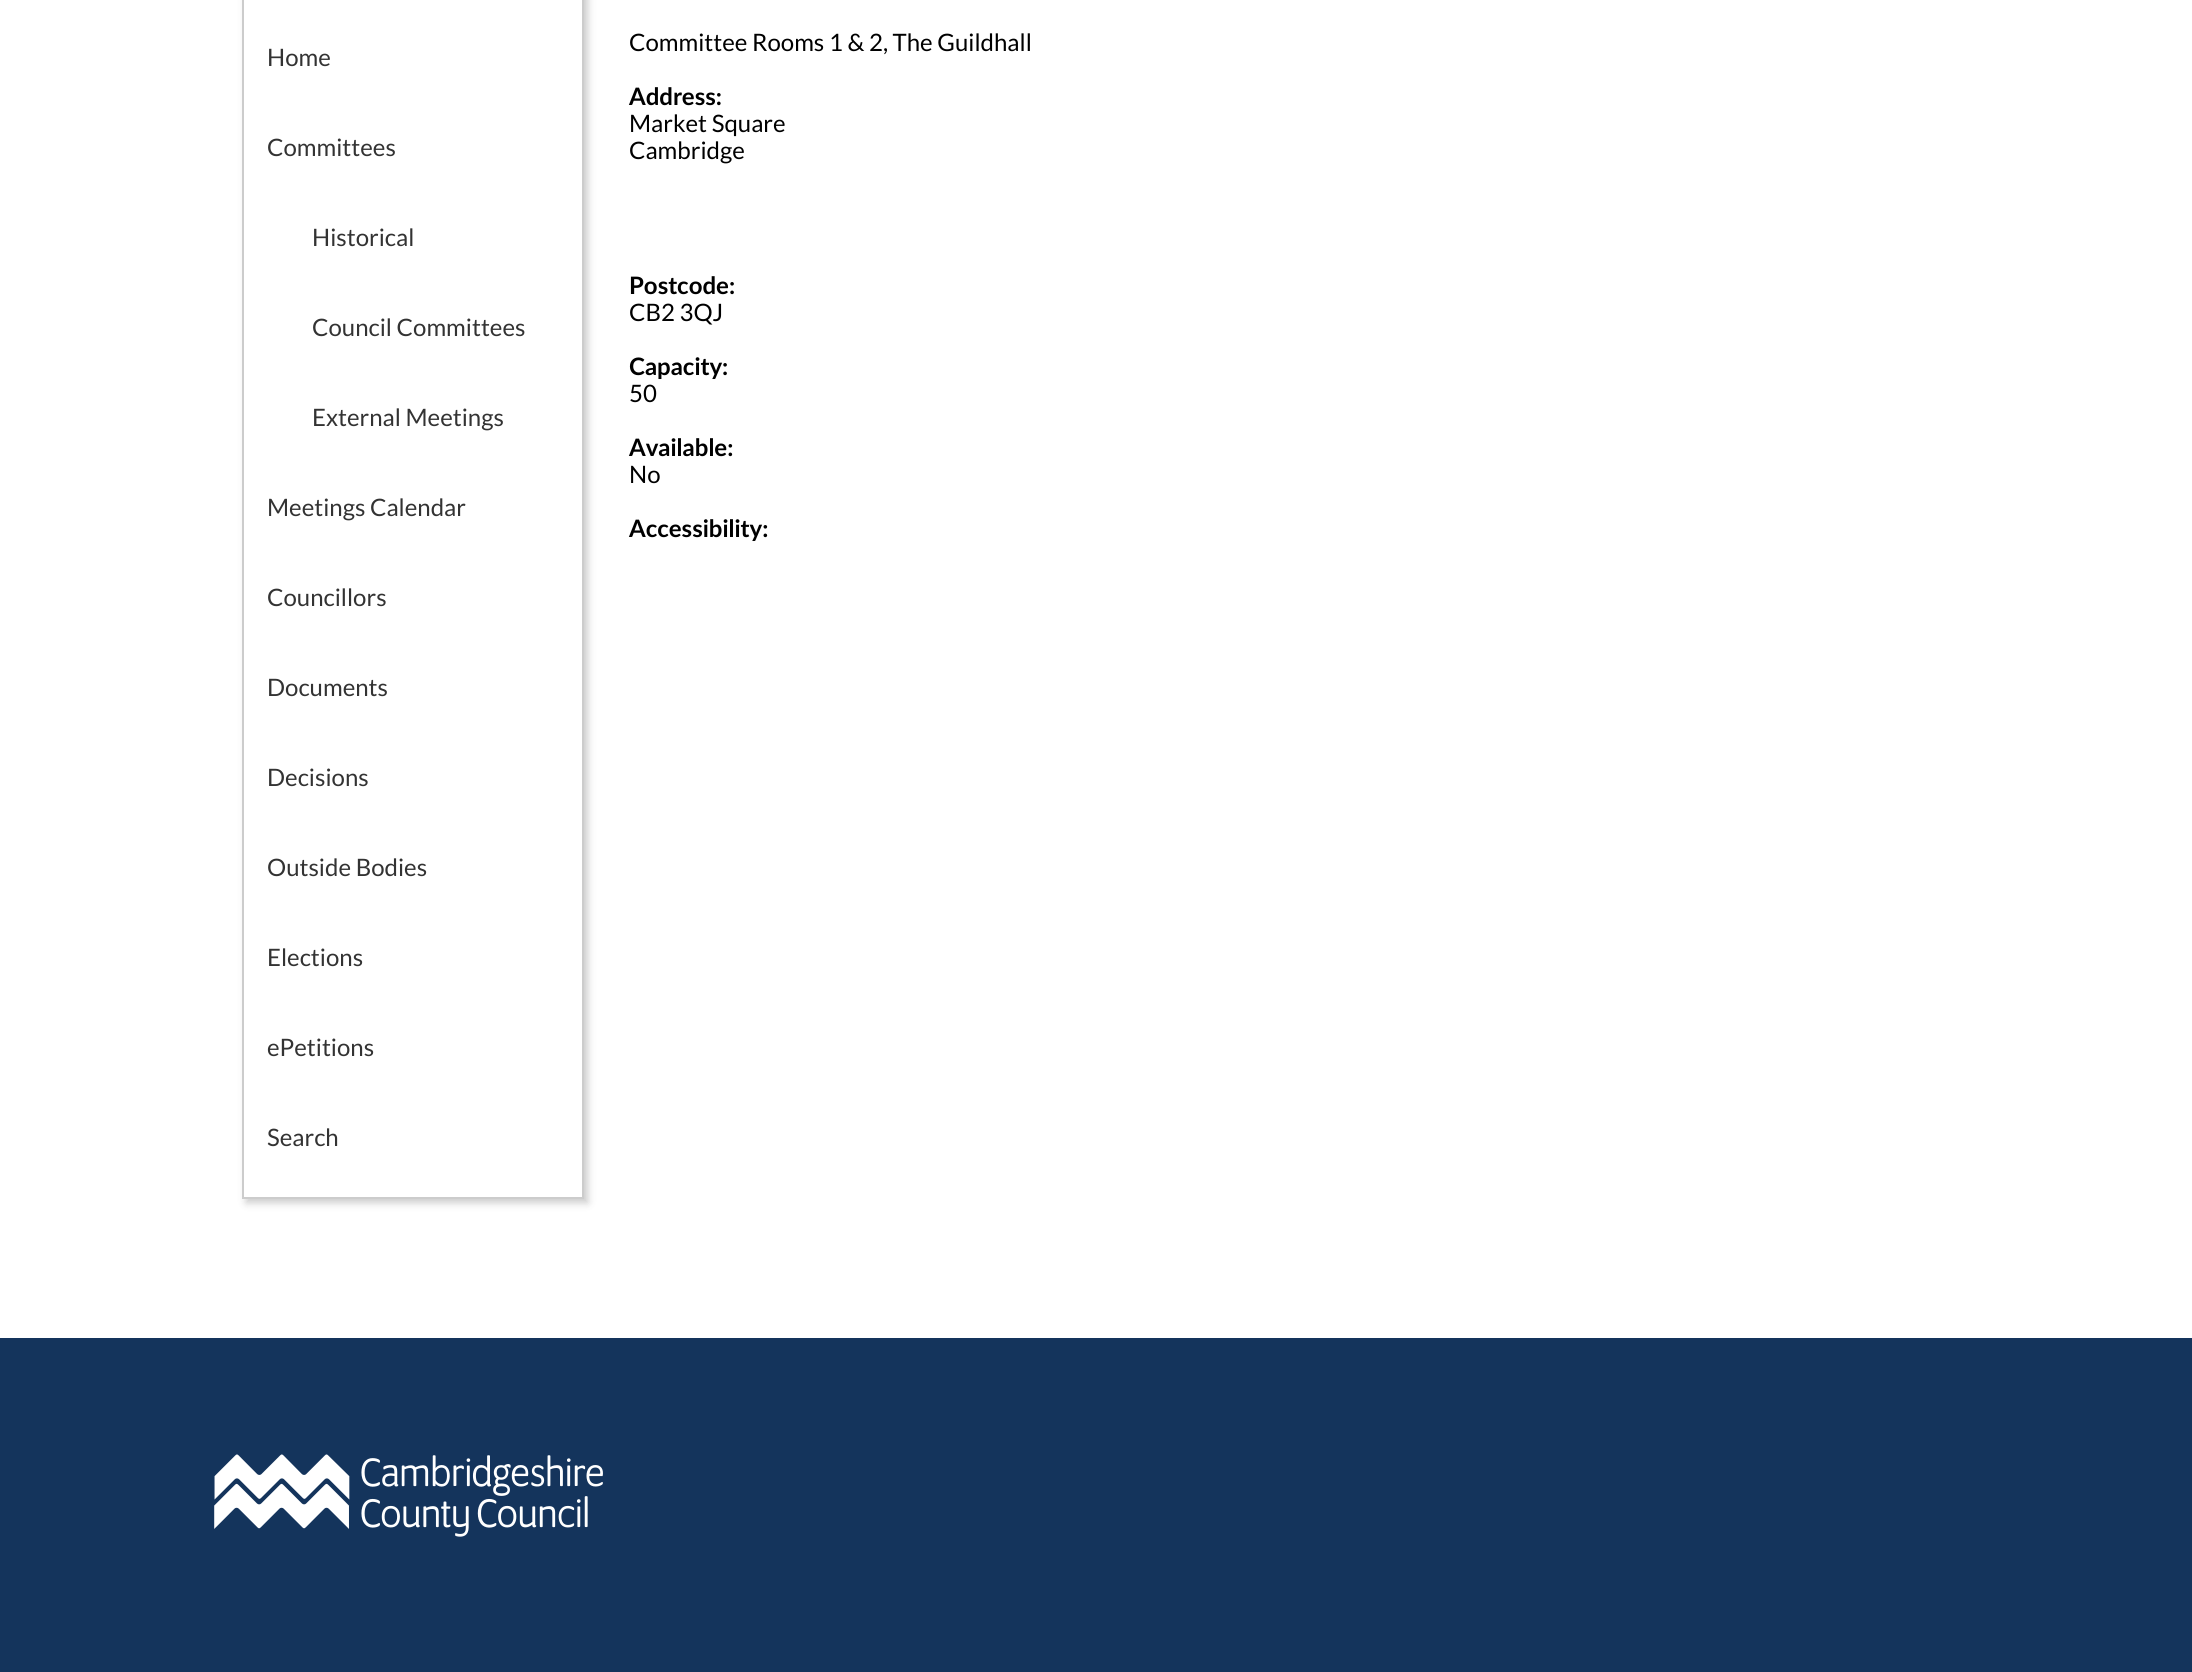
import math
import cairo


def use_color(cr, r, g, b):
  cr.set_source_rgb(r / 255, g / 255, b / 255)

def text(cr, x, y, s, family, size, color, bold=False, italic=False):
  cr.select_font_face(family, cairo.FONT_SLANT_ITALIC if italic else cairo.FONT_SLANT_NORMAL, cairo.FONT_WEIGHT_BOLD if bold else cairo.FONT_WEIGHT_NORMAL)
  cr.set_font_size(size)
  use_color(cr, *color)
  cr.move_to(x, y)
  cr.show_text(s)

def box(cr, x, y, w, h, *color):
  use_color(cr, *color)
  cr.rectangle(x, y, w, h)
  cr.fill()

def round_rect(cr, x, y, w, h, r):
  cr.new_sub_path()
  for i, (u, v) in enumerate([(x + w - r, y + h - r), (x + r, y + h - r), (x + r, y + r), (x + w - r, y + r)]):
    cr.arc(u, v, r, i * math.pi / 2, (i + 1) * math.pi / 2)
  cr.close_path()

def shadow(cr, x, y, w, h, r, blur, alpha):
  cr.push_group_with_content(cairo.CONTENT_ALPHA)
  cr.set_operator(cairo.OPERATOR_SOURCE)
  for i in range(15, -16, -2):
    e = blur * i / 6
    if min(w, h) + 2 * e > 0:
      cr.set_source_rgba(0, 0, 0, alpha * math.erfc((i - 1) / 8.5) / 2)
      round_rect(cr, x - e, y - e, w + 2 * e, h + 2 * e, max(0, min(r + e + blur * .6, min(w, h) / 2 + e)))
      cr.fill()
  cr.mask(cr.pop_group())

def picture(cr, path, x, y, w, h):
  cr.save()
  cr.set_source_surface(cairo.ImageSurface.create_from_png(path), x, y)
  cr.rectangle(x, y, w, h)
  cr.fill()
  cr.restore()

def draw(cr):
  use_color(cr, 255, 255, 255)
  cr.paint()
  use_color(cr, 0, 0, 0)
  shadow(cr, 246, -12, 342, 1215, 0, 4, 0.2)
  use_color(cr, 255, 255, 255)
  cr.rectangle(243, -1, 340, 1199)
  cr.fill_preserve()
  use_color(cr, 204, 204, 204)
  cr.stroke()
  box(cr, 0, 1338, 2192, 334, 20, 52, 92)
  picture(cr, "img_01.png", 214, 1454, 389, 83)
  text(cr, 267, 66, "Home", "Lato", 24, (51, 51, 51))
  text(cr, 267, 156, "Committees", "Lato", 24, (51, 51, 51))
  text(cr, 312, 246, "Historical", "Lato", 24, (51, 51, 51))
  text(cr, 312, 336, "Council Committees", "Lato", 24, (51, 51, 51))
  text(cr, 312, 426, "External Meetings", "Lato", 24, (51, 51, 51))
  text(cr, 267, 516, "Meetings Calendar", "Lato", 24, (51, 51, 51))
  text(cr, 267, 606, "Councillors", "Lato", 24, (51, 51, 51))
  text(cr, 267, 696, "Documents", "Lato", 24, (51, 51, 51))
  text(cr, 267, 786, "Decisions", "Lato", 24, (51, 51, 51))
  text(cr, 267, 876, "Outside Bodies", "Lato", 24, (51, 51, 51))
  text(cr, 267, 966, "Elections", "Lato", 24, (51, 51, 51))
  text(cr, 267, 1056, "ePetitions", "Lato", 24, (51, 51, 51))
  text(cr, 267, 1146, "Search", "Lato", 24, (51, 51, 51))
  text(cr, 629, 51, "Committee Rooms 1 & 2, The Guildhall", "Lato", 24, (0, 0, 0))
  text(cr, 629, 105, "Address:", "Lato", 24, (0, 0, 0), bold=True)
  text(cr, 629, 132, "Market Square", "Lato", 24, (0, 0, 0))
  text(cr, 629, 159, "Cambridge", "Lato", 24, (0, 0, 0))
  text(cr, 629, 294, "Postcode:", "Lato", 24, (0, 0, 0), bold=True)
  text(cr, 629, 321, "CB2 3QJ", "Lato", 24, (0, 0, 0))
  text(cr, 629, 375, "Capacity:", "Lato", 24, (0, 0, 0), bold=True)
  text(cr, 629, 402, "50", "Lato", 24, (0, 0, 0))
  text(cr, 629, 456, "Available:", "Lato", 24, (0, 0, 0), bold=True)
  text(cr, 629, 483, "No", "Lato", 24, (0, 0, 0))
  text(cr, 629, 537, "Accessibility:", "Lato", 24, (0, 0, 0), bold=True)


surface = cairo.ImageSurface(cairo.FORMAT_RGB24, 2192, 1672)
cr = cairo.Context(surface)
options = cairo.FontOptions()
options.set_hint_metrics(cairo.HINT_METRICS_OFF)
options.set_hint_style(cairo.HINT_STYLE_NONE)
cr.set_font_options(options)
cr.set_miter_limit(4)
draw(cr)
surface.write_to_png("out.png")
